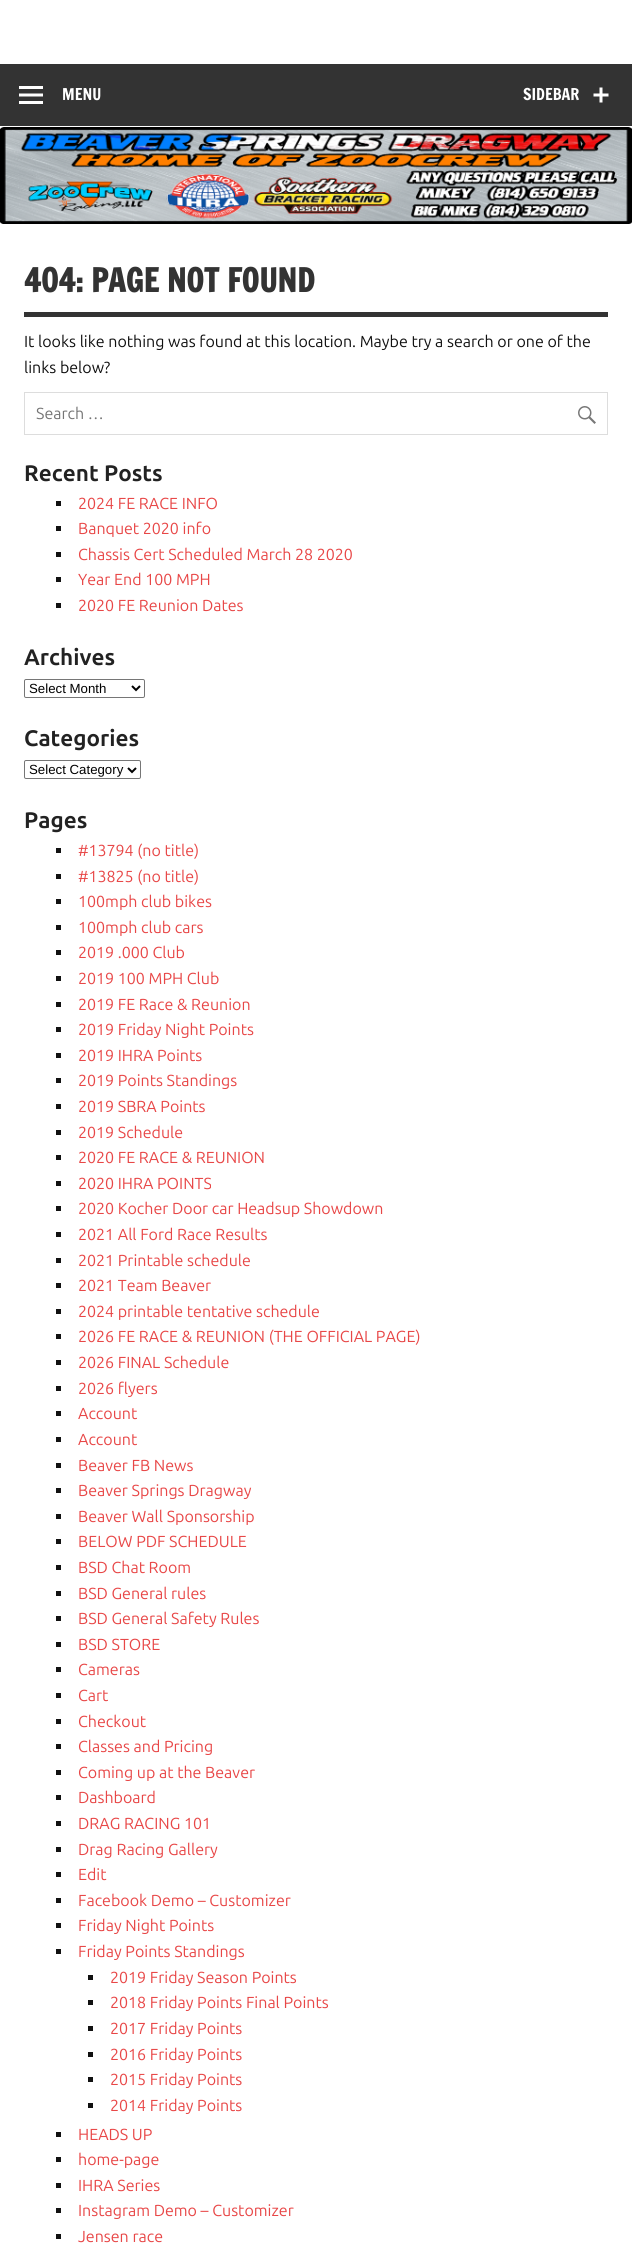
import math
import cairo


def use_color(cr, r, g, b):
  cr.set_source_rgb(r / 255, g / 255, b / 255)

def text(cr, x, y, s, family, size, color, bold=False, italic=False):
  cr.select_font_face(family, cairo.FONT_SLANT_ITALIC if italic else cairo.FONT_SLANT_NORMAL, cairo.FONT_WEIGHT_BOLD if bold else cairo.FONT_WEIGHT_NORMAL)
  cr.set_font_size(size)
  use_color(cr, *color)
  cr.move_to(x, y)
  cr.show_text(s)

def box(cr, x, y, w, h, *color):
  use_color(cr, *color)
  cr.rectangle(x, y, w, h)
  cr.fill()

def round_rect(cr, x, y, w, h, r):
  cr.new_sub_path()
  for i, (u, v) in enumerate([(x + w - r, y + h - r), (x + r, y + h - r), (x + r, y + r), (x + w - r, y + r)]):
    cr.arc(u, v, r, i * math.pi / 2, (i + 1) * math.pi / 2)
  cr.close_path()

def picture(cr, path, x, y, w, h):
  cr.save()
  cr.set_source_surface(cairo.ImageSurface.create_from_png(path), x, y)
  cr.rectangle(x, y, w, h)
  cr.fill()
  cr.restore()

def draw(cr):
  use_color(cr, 255, 255, 255)
  cr.paint()
  box(cr, 0, 64, 632, 62, 51, 51, 51)
  picture(cr, "img_01.png", 19, 86, 24, 18)
  picture(cr, "img_02.png", 593, 87, 16, 16)
  picture(cr, "img_03.png", 0, 127, 632, 97)
  box(cr, 24, 312, 584, 5, 51, 51, 51)
  cr.rectangle(24.5, 392.5, 583, 42)
  use_color(cr, 221, 221, 221)
  cr.set_line_width(1)
  cr.stroke()
  picture(cr, "img_04.png", 578, 406, 18, 18)
  box(cr, 56, 501, 5, 5, 17, 17, 17)
  box(cr, 56, 526, 5, 5, 17, 17, 17)
  box(cr, 56, 552, 5, 5, 17, 17, 17)
  box(cr, 56, 577, 5, 5, 17, 17, 17)
  box(cr, 56, 603, 5, 5, 17, 17, 17)
  round_rect(cr, 24.5, 679.5, 120, 18, 1.5)
  use_color(cr, 118, 118, 118)
  cr.stroke()
  cr.new_path()
  cr.move_to(132, 686)
  cr.line_to(136, 690)
  cr.line_to(140, 686)
  use_color(cr, 0, 0, 0)
  cr.set_line_width(2)
  cr.stroke()
  round_rect(cr, 24.5, 760.5, 116, 18, 1.5)
  use_color(cr, 118, 118, 118)
  cr.set_line_width(1)
  cr.stroke()
  cr.new_path()
  cr.move_to(128, 768)
  cr.line_to(132, 772)
  cr.line_to(136, 768)
  use_color(cr, 0, 0, 0)
  cr.set_line_width(2)
  cr.stroke()
  box(cr, 56, 848, 5, 5, 17, 17, 17)
  box(cr, 56, 874, 5, 5, 17, 17, 17)
  box(cr, 56, 899, 5, 5, 17, 17, 17)
  box(cr, 56, 925, 5, 5, 17, 17, 17)
  box(cr, 56, 950, 5, 5, 17, 17, 17)
  box(cr, 56, 976, 5, 5, 17, 17, 17)
  box(cr, 56, 1002, 5, 5, 17, 17, 17)
  box(cr, 56, 1027, 5, 5, 17, 17, 17)
  box(cr, 56, 1053, 5, 5, 17, 17, 17)
  box(cr, 56, 1078, 5, 5, 17, 17, 17)
  box(cr, 56, 1104, 5, 5, 17, 17, 17)
  box(cr, 56, 1130, 5, 5, 17, 17, 17)
  box(cr, 56, 1155, 5, 5, 17, 17, 17)
  box(cr, 56, 1181, 5, 5, 17, 17, 17)
  box(cr, 56, 1206, 5, 5, 17, 17, 17)
  box(cr, 56, 1232, 5, 5, 17, 17, 17)
  box(cr, 56, 1258, 5, 5, 17, 17, 17)
  box(cr, 56, 1283, 5, 5, 17, 17, 17)
  box(cr, 56, 1309, 5, 5, 17, 17, 17)
  box(cr, 56, 1334, 5, 5, 17, 17, 17)
  box(cr, 56, 1360, 5, 5, 17, 17, 17)
  box(cr, 56, 1386, 5, 5, 17, 17, 17)
  box(cr, 56, 1411, 5, 5, 17, 17, 17)
  box(cr, 56, 1437, 5, 5, 17, 17, 17)
  box(cr, 56, 1463, 5, 5, 17, 17, 17)
  box(cr, 56, 1488, 5, 5, 17, 17, 17)
  box(cr, 56, 1514, 5, 5, 17, 17, 17)
  box(cr, 56, 1539, 5, 5, 17, 17, 17)
  box(cr, 56, 1565, 5, 5, 17, 17, 17)
  box(cr, 56, 1591, 5, 5, 17, 17, 17)
  box(cr, 56, 1616, 5, 5, 17, 17, 17)
  box(cr, 56, 1642, 5, 5, 17, 17, 17)
  box(cr, 56, 1667, 5, 5, 17, 17, 17)
  box(cr, 56, 1693, 5, 5, 17, 17, 17)
  box(cr, 56, 1719, 5, 5, 17, 17, 17)
  box(cr, 56, 1744, 5, 5, 17, 17, 17)
  box(cr, 56, 1770, 5, 5, 17, 17, 17)
  box(cr, 56, 1795, 5, 5, 17, 17, 17)
  box(cr, 56, 1821, 5, 5, 17, 17, 17)
  box(cr, 56, 1847, 5, 5, 17, 17, 17)
  box(cr, 56, 1872, 5, 5, 17, 17, 17)
  box(cr, 56, 1898, 5, 5, 17, 17, 17)
  box(cr, 56, 1923, 5, 5, 17, 17, 17)
  box(cr, 56, 1949, 5, 5, 17, 17, 17)
  box(cr, 88, 1975, 5, 5, 17, 17, 17)
  box(cr, 88, 2000, 5, 5, 17, 17, 17)
  box(cr, 88, 2026, 5, 5, 17, 17, 17)
  box(cr, 88, 2052, 5, 5, 17, 17, 17)
  box(cr, 88, 2077, 5, 5, 17, 17, 17)
  box(cr, 88, 2103, 5, 5, 17, 17, 17)
  box(cr, 56, 2132, 5, 5, 17, 17, 17)
  box(cr, 56, 2157, 5, 5, 17, 17, 17)
  box(cr, 56, 2183, 5, 5, 17, 17, 17)
  box(cr, 56, 2208, 5, 5, 17, 17, 17)
  box(cr, 56, 2234, 5, 5, 17, 17, 17)
  text(cr, 62, 100, "MENU", "Francois One", 16, (255, 255, 255))
  text(cr, 523, 100, "SIDEBAR", "Francois One", 16, (255, 255, 255))
  text(cr, 24, 292, "404: PAGE NOT FOUND", "Francois One", 32, (51, 51, 51), bold=True)
  text(cr, 24, 347, "It looks like nothing was found at this location. Maybe try a search or one of the", "Ubuntu", 16, (17, 17, 17))
  text(cr, 24, 373, "links below?", "Ubuntu", 16, (17, 17, 17))
  text(cr, 36, 419, "Search …", "Ubuntu", 16, (117, 117, 117))
  text(cr, 24, 481, "Recent Posts", "Ubuntu", 22.5, (34, 34, 34), bold=True)
  text(cr, 78, 509, "2024 FE RACE INFO", "Ubuntu", 16, (232, 71, 71))
  text(cr, 78, 534, "Banquet 2020 info", "Ubuntu", 16, (232, 71, 71))
  text(cr, 78, 560, "Chassis Cert Scheduled March 28 2020", "Ubuntu", 16, (232, 71, 71))
  text(cr, 78, 585, "Year End 100 MPH", "Ubuntu", 16, (232, 71, 71))
  text(cr, 78, 611, "2020 FE Reunion Dates", "Ubuntu", 16, (232, 71, 71))
  text(cr, 24, 665, "Archives", "Ubuntu", 22.5, (34, 34, 34), bold=True)
  text(cr, 29, 693, "Select Month", "Liberation Sans", 13.25, (0, 0, 0))
  text(cr, 24, 746, "Categories", "Ubuntu", 22.5, (34, 34, 34), bold=True)
  text(cr, 29, 774, "Select Category", "Liberation Sans", 13.25, (0, 0, 0))
  text(cr, 24, 828, "Pages", "Ubuntu", 22.5, (34, 34, 34), bold=True)
  text(cr, 78, 856, "#13794 (no title)", "Ubuntu", 16, (232, 71, 71))
  text(cr, 78, 882, "#13825 (no title)", "Ubuntu", 16, (232, 71, 71))
  text(cr, 78, 907, "100mph club bikes", "Ubuntu", 16, (232, 71, 71))
  text(cr, 78, 933, "100mph club cars", "Ubuntu", 16, (232, 71, 71))
  text(cr, 78, 958, "2019 .000 Club", "Ubuntu", 16, (232, 71, 71))
  text(cr, 78, 984, "2019 100 MPH Club", "Ubuntu", 16, (232, 71, 71))
  text(cr, 78, 1010, "2019 FE Race & Reunion", "Ubuntu", 16, (232, 71, 71))
  text(cr, 78, 1035, "2019 Friday Night Points", "Ubuntu", 16, (232, 71, 71))
  text(cr, 78, 1061, "2019 IHRA Points", "Ubuntu", 16, (232, 71, 71))
  text(cr, 78, 1086, "2019 Points Standings", "Ubuntu", 16, (232, 71, 71))
  text(cr, 78, 1112, "2019 SBRA Points", "Ubuntu", 16, (232, 71, 71))
  text(cr, 78, 1138, "2019 Schedule", "Ubuntu", 16, (232, 71, 71))
  text(cr, 78, 1163, "2020 FE RACE & REUNION", "Ubuntu", 16, (232, 71, 71))
  text(cr, 78, 1189, "2020 IHRA POINTS", "Ubuntu", 16, (232, 71, 71))
  text(cr, 78, 1214, "2020 Kocher Door car Headsup Showdown", "Ubuntu", 16, (232, 71, 71))
  text(cr, 78, 1240, "2021 All Ford Race Results", "Ubuntu", 16, (232, 71, 71))
  text(cr, 78, 1266, "2021 Printable schedule", "Ubuntu", 16, (232, 71, 71))
  text(cr, 78, 1291, "2021 Team Beaver", "Ubuntu", 16, (232, 71, 71))
  text(cr, 78, 1317, "2024 printable tentative schedule", "Ubuntu", 16, (232, 71, 71))
  text(cr, 78, 1342, "2026 FE RACE & REUNION (THE OFFICIAL PAGE)", "Ubuntu", 16, (232, 71, 71))
  text(cr, 78, 1368, "2026 FINAL Schedule", "Ubuntu", 16, (232, 71, 71))
  text(cr, 78, 1394, "2026 flyers", "Ubuntu", 16, (232, 71, 71))
  text(cr, 78, 1419, "Account", "Ubuntu", 16, (232, 71, 71))
  text(cr, 78, 1445, "Account", "Ubuntu", 16, (232, 71, 71))
  text(cr, 78, 1471, "Beaver FB News", "Ubuntu", 16, (232, 71, 71))
  text(cr, 78, 1496, "Beaver Springs Dragway", "Ubuntu", 16, (232, 71, 71))
  text(cr, 78, 1522, "Beaver Wall Sponsorship", "Ubuntu", 16, (232, 71, 71))
  text(cr, 78, 1547, "BELOW PDF SCHEDULE", "Ubuntu", 16, (232, 71, 71))
  text(cr, 78, 1573, "BSD Chat Room", "Ubuntu", 16, (232, 71, 71))
  text(cr, 78, 1599, "BSD General rules", "Ubuntu", 16, (232, 71, 71))
  text(cr, 78, 1624, "BSD General Safety Rules", "Ubuntu", 16, (232, 71, 71))
  text(cr, 78, 1650, "BSD STORE", "Ubuntu", 16, (232, 71, 71))
  text(cr, 78, 1675, "Cameras", "Ubuntu", 16, (232, 71, 71))
  text(cr, 78, 1701, "Cart", "Ubuntu", 16, (232, 71, 71))
  text(cr, 78, 1727, "Checkout", "Ubuntu", 16, (232, 71, 71))
  text(cr, 78, 1752, "Classes and Pricing", "Ubuntu", 16, (232, 71, 71))
  text(cr, 78, 1778, "Coming up at the Beaver", "Ubuntu", 16, (232, 71, 71))
  text(cr, 78, 1803, "Dashboard", "Ubuntu", 16, (232, 71, 71))
  text(cr, 78, 1829, "DRAG RACING 101", "Ubuntu", 16, (232, 71, 71))
  text(cr, 78, 1855, "Drag Racing Gallery", "Ubuntu", 16, (232, 71, 71))
  text(cr, 78, 1880, "Edit", "Ubuntu", 16, (232, 71, 71))
  text(cr, 78, 1906, "Facebook Demo – Customizer", "Ubuntu", 16, (232, 71, 71))
  text(cr, 78, 1931, "Friday Night Points", "Ubuntu", 16, (232, 71, 71))
  text(cr, 78, 1957, "Friday Points Standings", "Ubuntu", 16, (232, 71, 71))
  text(cr, 110, 1983, "2019 Friday Season Points", "Ubuntu", 16, (232, 71, 71))
  text(cr, 110, 2008, "2018 Friday Points Final Points", "Ubuntu", 16, (232, 71, 71))
  text(cr, 110, 2034, "2017 Friday Points", "Ubuntu", 16, (232, 71, 71))
  text(cr, 110, 2060, "2016 Friday Points", "Ubuntu", 16, (232, 71, 71))
  text(cr, 110, 2085, "2015 Friday Points", "Ubuntu", 16, (232, 71, 71))
  text(cr, 110, 2111, "2014 Friday Points", "Ubuntu", 16, (232, 71, 71))
  text(cr, 78, 2140, "HEADS UP", "Ubuntu", 16, (232, 71, 71))
  text(cr, 78, 2165, "home-page", "Ubuntu", 16, (232, 71, 71))
  text(cr, 78, 2191, "IHRA Series", "Ubuntu", 16, (232, 71, 71))
  text(cr, 78, 2216, "Instagram Demo – Customizer", "Ubuntu", 16, (232, 71, 71))
  text(cr, 78, 2242, "Jensen race", "Ubuntu", 16, (232, 71, 71))


surface = cairo.ImageSurface(cairo.FORMAT_RGB24, 632, 2252)
cr = cairo.Context(surface)
options = cairo.FontOptions()
options.set_hint_metrics(cairo.HINT_METRICS_OFF)
options.set_hint_style(cairo.HINT_STYLE_NONE)
cr.set_font_options(options)
cr.set_miter_limit(4)
draw(cr)
surface.write_to_png("out.png")
